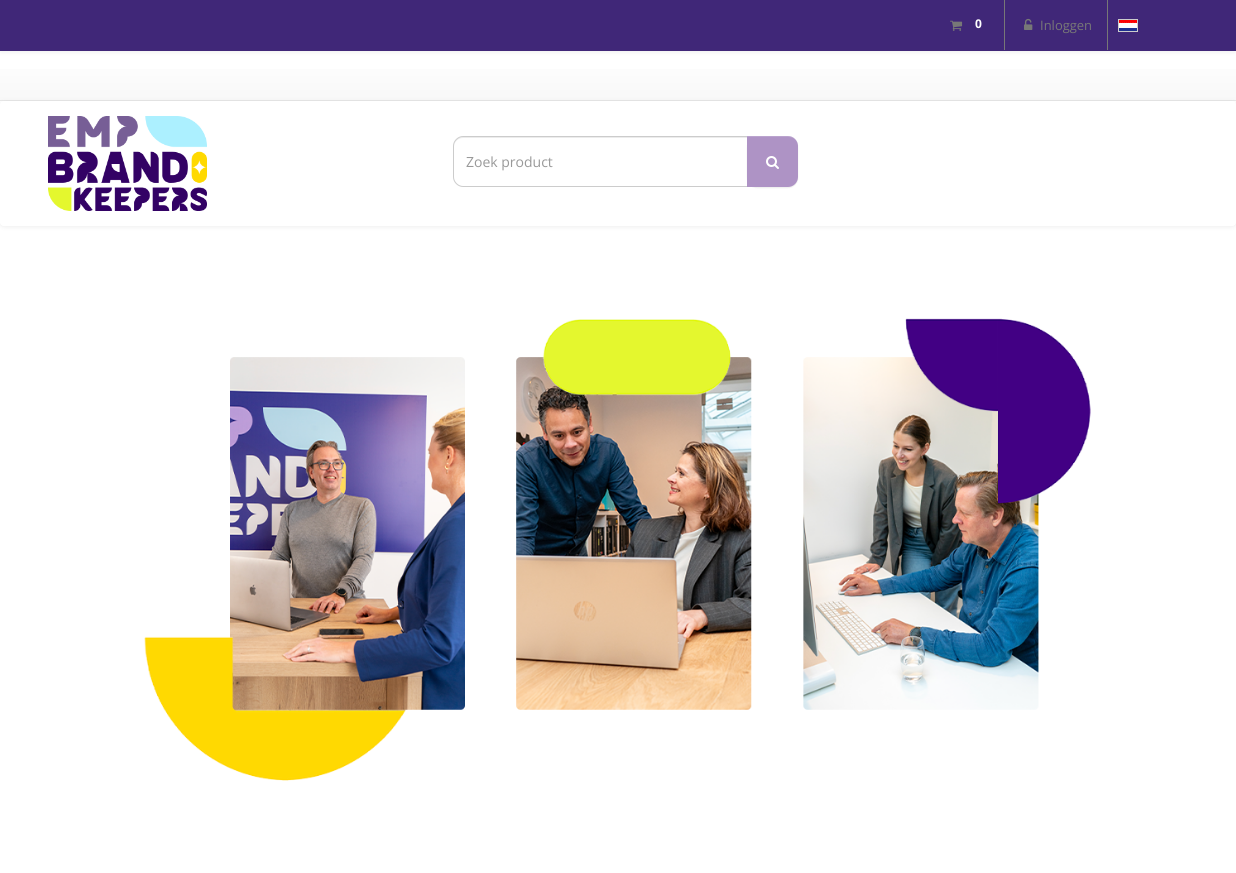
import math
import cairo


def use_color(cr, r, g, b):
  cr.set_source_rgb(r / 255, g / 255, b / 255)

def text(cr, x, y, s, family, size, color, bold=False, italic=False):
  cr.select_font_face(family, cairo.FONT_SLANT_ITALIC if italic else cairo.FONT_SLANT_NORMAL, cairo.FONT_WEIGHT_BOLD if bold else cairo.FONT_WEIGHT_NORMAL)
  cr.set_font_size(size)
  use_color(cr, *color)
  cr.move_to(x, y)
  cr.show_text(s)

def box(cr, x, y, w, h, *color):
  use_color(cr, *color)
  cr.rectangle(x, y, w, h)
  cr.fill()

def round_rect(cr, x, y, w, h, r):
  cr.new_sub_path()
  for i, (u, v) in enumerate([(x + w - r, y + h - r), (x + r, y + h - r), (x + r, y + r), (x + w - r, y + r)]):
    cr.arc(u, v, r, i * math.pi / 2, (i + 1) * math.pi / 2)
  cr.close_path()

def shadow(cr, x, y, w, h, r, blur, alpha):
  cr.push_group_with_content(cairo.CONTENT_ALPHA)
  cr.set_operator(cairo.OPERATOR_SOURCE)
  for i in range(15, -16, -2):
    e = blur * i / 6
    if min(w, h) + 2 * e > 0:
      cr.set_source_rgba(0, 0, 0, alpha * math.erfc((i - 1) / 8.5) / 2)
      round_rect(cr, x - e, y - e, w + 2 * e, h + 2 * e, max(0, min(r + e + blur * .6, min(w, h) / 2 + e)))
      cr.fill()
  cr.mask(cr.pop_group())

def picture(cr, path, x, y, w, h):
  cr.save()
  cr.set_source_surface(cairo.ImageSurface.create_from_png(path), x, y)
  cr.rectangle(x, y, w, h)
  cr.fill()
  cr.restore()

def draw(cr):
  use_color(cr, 255, 255, 255)
  cr.paint()
  use_color(cr, 0, 0, 0)
  shadow(cr, 0, 1, 1236, 51, 0, 2.5, 0.07)
  box(cr, 0, 0, 1236, 51, 64, 39, 120)
  box(cr, 1004, 0, 1, 50, 119, 119, 119)
  picture(cr, "img_01.png", 950, 20, 13, 11)
  box(cr, 1107, 0, 1, 50, 119, 119, 119)
  picture(cr, "img_02.png", 1024, 18, 9, 12)
  picture(cr, "img_03.png", 1118, 19, 20, 13)
  gradient = cairo.LinearGradient(618, 51, 618, 100)
  gradient.add_color_stop_rgba(0, 1, 1, 1, 1)
  gradient.add_color_stop_rgba(1, 0.973, 0.973, 0.973, 1)
  cr.set_source(gradient)
  cr.rectangle(0, 69, 1236, 31)
  cr.fill()
  box(cr, 0, 100, 1236, 1, 231, 231, 231)
  cr.save()
  cr.set_fill_rule(cairo.FILL_RULE_EVEN_ODD)
  cr.new_path()
  cr.move_to(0, 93)
  cr.line_to(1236, 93)
  cr.line_to(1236, 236)
  cr.line_to(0, 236)
  cr.close_path()
  cr.move_to(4, 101)
  cr.line_to(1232, 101)
  cr.curve_to(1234, 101, 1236, 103, 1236, 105)
  cr.line_to(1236, 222)
  cr.curve_to(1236, 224, 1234, 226, 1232, 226)
  cr.line_to(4, 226)
  cr.curve_to(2, 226, 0, 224, 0, 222)
  cr.line_to(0, 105)
  cr.curve_to(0, 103, 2, 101, 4, 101)
  cr.close_path()
  cr.clip()
  use_color(cr, 0, 0, 0)
  shadow(cr, 0, 102, 1236, 125, 4, 2.5, 0.07)
  cr.restore()
  picture(cr, "img_04.png", 48, 116, 159, 95)
  use_color(cr, 236, 236, 236)
  cr.new_path()
  cr.move_to(463, 138)
  cr.line_to(747, 138)
  cr.line_to(747, 137)
  cr.line_to(463, 137)
  cr.curve_to(457, 137, 454, 142, 454, 147)
  cr.curve_to(454, 142, 458, 138, 463, 138)
  cr.close_path()
  cr.fill()
  cr.new_path()
  cr.move_to(463, 136.5)
  cr.line_to(747.5, 136.5)
  cr.line_to(747.5, 186.5)
  cr.line_to(463, 186.5)
  cr.curve_to(458, 186.5, 453.5, 182, 453.5, 177)
  cr.line_to(453.5, 146)
  cr.curve_to(453.5, 141, 458, 136.5, 463, 136.5)
  cr.close_path()
  use_color(cr, 204, 204, 204)
  cr.set_line_width(1)
  cr.stroke()
  use_color(cr, 0, 0, 0)
  shadow(cr, 747, 137, 51, 51, 10, 0.5, 0.07)
  use_color(cr, 174, 147, 197)
  cr.new_path()
  cr.move_to(747, 136)
  cr.line_to(788, 136)
  cr.curve_to(793.5, 136, 798, 140.5, 798, 146)
  cr.line_to(798, 177)
  cr.curve_to(798, 182.5, 793.5, 187, 788, 187)
  cr.line_to(747, 187)
  cr.close_path()
  cr.fill()
  cr.set_source_rgba(1, 1, 1, 0.15)
  cr.new_path()
  cr.move_to(747, 137)
  cr.line_to(788, 137)
  cr.curve_to(794, 137, 798, 141, 798, 147)
  cr.curve_to(798, 133, 784, 136, 774, 136)
  cr.line_to(747, 136)
  cr.close_path()
  cr.fill()
  picture(cr, "img_05.png", 766, 156, 13, 13)
  picture(cr, "img_06.png", 144, 318, 947, 463)
  text(cr, 975, 28, "0", "Open Sans", 12, (255, 255, 255), bold=True)
  text(cr, 1040, 30, "Inloggen", "Open Sans", 13, (119, 119, 119))
  text(cr, 466, 167, "Zoek product", "Open Sans", 14, (153, 153, 153))


surface = cairo.ImageSurface(cairo.FORMAT_RGB24, 1236, 873)
cr = cairo.Context(surface)
options = cairo.FontOptions()
options.set_hint_metrics(cairo.HINT_METRICS_OFF)
options.set_hint_style(cairo.HINT_STYLE_NONE)
cr.set_font_options(options)
cr.set_miter_limit(4)
draw(cr)
surface.write_to_png("out.png")
